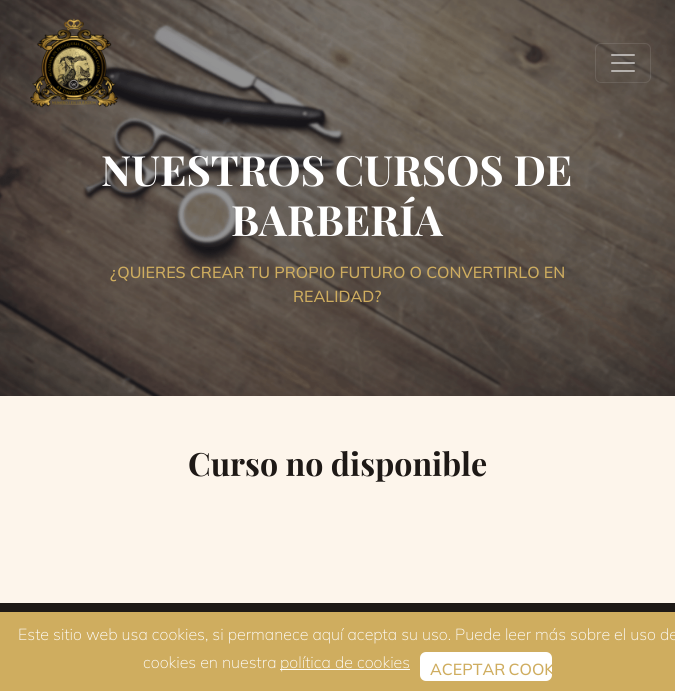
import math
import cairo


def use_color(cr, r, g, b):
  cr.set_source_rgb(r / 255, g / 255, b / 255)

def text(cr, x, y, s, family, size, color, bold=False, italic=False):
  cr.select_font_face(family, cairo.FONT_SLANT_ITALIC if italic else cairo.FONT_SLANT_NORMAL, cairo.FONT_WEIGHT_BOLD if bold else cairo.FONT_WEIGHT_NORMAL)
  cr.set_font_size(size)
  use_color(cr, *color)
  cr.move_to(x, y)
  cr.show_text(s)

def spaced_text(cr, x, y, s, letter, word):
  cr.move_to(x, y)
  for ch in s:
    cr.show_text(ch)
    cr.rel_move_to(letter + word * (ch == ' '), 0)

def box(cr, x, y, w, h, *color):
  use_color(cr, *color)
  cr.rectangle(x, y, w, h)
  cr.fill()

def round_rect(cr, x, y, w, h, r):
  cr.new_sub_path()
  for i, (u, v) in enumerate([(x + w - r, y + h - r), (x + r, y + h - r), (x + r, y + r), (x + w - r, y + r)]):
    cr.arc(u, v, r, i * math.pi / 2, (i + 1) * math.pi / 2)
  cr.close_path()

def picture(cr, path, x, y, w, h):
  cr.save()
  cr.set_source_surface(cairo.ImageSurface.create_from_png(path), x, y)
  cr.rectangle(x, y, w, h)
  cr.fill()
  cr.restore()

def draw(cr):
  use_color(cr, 255, 255, 255)
  cr.paint()
  picture(cr, "img_03.png", 0, 0, 675, 396)
  picture(cr, "img_01.png", 30, 18, 89, 90)
  round_rect(cr, 595.5, 43.5, 55, 39, 5.5)
  cr.set_source_rgba(1, 1, 1, 0.1)
  cr.set_line_width(1)
  cr.stroke()
  picture(cr, "img_02.png", 611, 54, 24, 18)
  box(cr, 0, 396, 675, 207, 253, 245, 235)
  box(cr, 0, 603, 675, 9, 30, 25, 22)
  box(cr, 0, 612, 675, 79, 207, 173, 95)
  box(cr, 280, 669, 130, 1, 255, 255, 255)
  round_rect(cr, 420, 652, 132, 29, 6)
  cr.fill()
  text(cr, 101, 186, "NUESTROS CURSOS DE", "Playfair Display", 41.75, (255, 255, 255), bold=True)
  text(cr, 231, 236, "BARBERÍA", "Playfair Display", 41.75, (255, 255, 255), bold=True)
  text(cr, 110, 278, "¿QUIERES CREAR TU PROPIO FUTURO O CONVERTIRLO EN", "Mulish Medium", 16, (207, 173, 95))
  text(cr, 293, 302, "REALIDAD?", "Mulish Medium", 16, (207, 173, 95))
  text(cr, 188, 476, "Curso no disponible", "Playfair Display", 32.1, (30, 25, 22), bold=True)
  text(cr, 18, 640, "Este sitio web usa cookies, si permanece aquí acepta su uso. Puede leer más sobre el uso de", "Mulish ExtraLight", 16, (255, 255, 255))
  text(cr, 143, 668, "cookies en nuestra", "Mulish ExtraLight", 16, (255, 255, 255))
  text(cr, 280, 668, "política de cookies", "Mulish ExtraLight", 16, (255, 255, 255))
  cr.select_font_face("Mulish Medium")
  use_color(cr, 207, 173, 95)
  spaced_text(cr, 430, 675, "ACEPTAR COOK", 0, -1)


surface = cairo.ImageSurface(cairo.FORMAT_RGB24, 675, 691)
cr = cairo.Context(surface)
options = cairo.FontOptions()
options.set_hint_metrics(cairo.HINT_METRICS_OFF)
options.set_hint_style(cairo.HINT_STYLE_NONE)
cr.set_font_options(options)
cr.set_miter_limit(4)
draw(cr)
surface.write_to_png("out.png")
